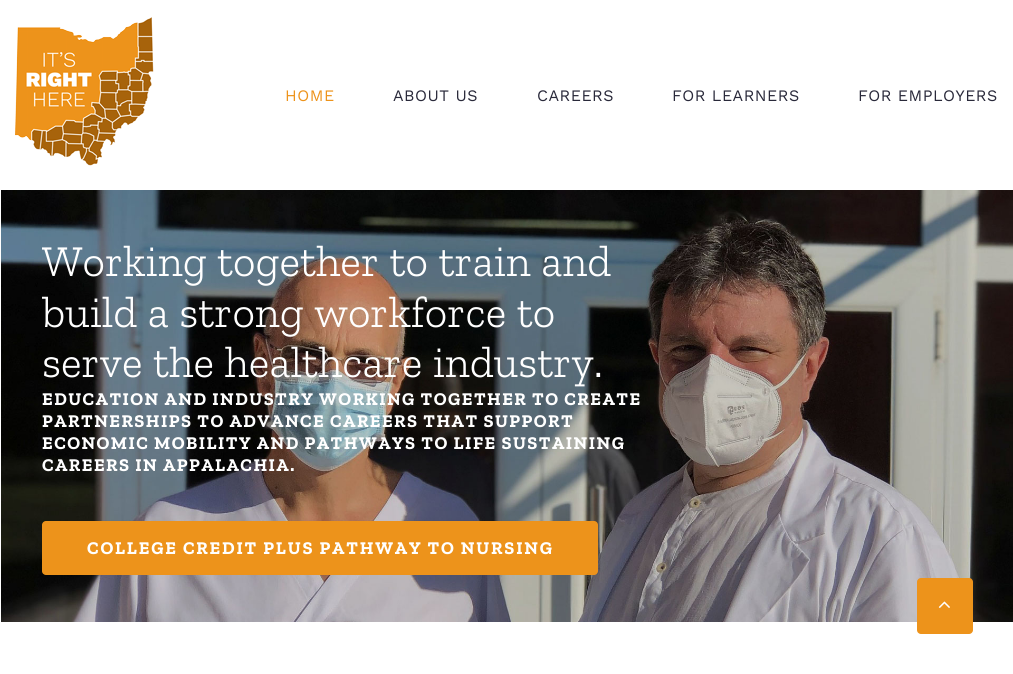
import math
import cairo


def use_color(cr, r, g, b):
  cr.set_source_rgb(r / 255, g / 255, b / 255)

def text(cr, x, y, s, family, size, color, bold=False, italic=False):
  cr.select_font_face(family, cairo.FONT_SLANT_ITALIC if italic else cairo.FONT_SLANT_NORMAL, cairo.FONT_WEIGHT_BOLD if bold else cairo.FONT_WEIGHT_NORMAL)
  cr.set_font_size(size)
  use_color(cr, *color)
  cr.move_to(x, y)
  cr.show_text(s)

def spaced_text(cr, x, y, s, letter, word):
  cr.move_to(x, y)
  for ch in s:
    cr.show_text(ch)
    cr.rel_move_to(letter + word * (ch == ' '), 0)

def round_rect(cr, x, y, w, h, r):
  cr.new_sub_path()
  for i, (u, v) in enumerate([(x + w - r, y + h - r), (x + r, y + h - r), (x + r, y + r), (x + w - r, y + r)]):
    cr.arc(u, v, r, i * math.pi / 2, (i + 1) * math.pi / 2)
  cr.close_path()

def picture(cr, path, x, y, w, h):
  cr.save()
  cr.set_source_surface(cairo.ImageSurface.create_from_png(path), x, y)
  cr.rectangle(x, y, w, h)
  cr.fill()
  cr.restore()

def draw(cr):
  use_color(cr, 255, 255, 255)
  cr.paint()
  picture(cr, "img_01.png", 15, 17, 139, 149)
  picture(cr, "img_02.png", 1, 190, 1012, 432)
  use_color(cr, 237, 147, 27)
  round_rect(cr, 42, 521, 556, 54, 4)
  cr.fill()
  round_rect(cr, 917, 578, 56, 56, 4)
  cr.fill()
  picture(cr, "img_03.png", 938, 601, 12, 7)
  cr.select_font_face("Work Sans")
  cr.set_font_size(16)
  spaced_text(cr, 285, 101, "HOME", 0.5, 0)
  use_color(cr, 41, 41, 58)
  spaced_text(cr, 393, 101, "ABOUT US", 0.5, 0)
  spaced_text(cr, 537, 101, "CAREERS", 0.5, 0)
  spaced_text(cr, 672, 101, "FOR LEARNERS", 0.5, 0)
  spaced_text(cr, 858, 101, "FOR EMPLOYERS", 0.5, 0)
  cr.save()
  cr.rectangle(42, 236, 610, 339)
  cr.clip()
  text(cr, 42, 276, "Working together to train and", "Zilla Slab Light", 44, (255, 255, 255))
  text(cr, 42, 327, "build a strong workforce to", "Zilla Slab Light", 44, (255, 255, 255))
  cr.restore()
  text(cr, 42, 377, "serve the healthcare industry.", "Zilla Slab Light", 44, (255, 255, 255))
  cr.select_font_face("Zilla Slab", cairo.FONT_SLANT_NORMAL, cairo.FONT_WEIGHT_BOLD)
  cr.set_font_size(18)
  spaced_text(cr, 42, 405, "EDUCATION AND INDUSTRY WORKING TOGETHER TO CREATE", 1.45, 0)
  spaced_text(cr, 42, 427, "PARTNERSHIPS TO ADVANCE CAREERS THAT SUPPORT", 1.45, 0)
  spaced_text(cr, 42, 449, "ECONOMIC MOBILITY AND PATHWAYS TO LIFE SUSTAINING", 1.45, 0)
  spaced_text(cr, 42, 471, "CAREERS IN APPALACHIA.", 1.45, 0)
  spaced_text(cr, 87, 554, "COLLEGE CREDIT PLUS PATHWAY TO NURSING", 1.8, 0)


surface = cairo.ImageSurface(cairo.FORMAT_RGB24, 1013, 674)
cr = cairo.Context(surface)
options = cairo.FontOptions()
options.set_hint_metrics(cairo.HINT_METRICS_OFF)
options.set_hint_style(cairo.HINT_STYLE_NONE)
cr.set_font_options(options)
cr.set_miter_limit(4)
draw(cr)
surface.write_to_png("out.png")
